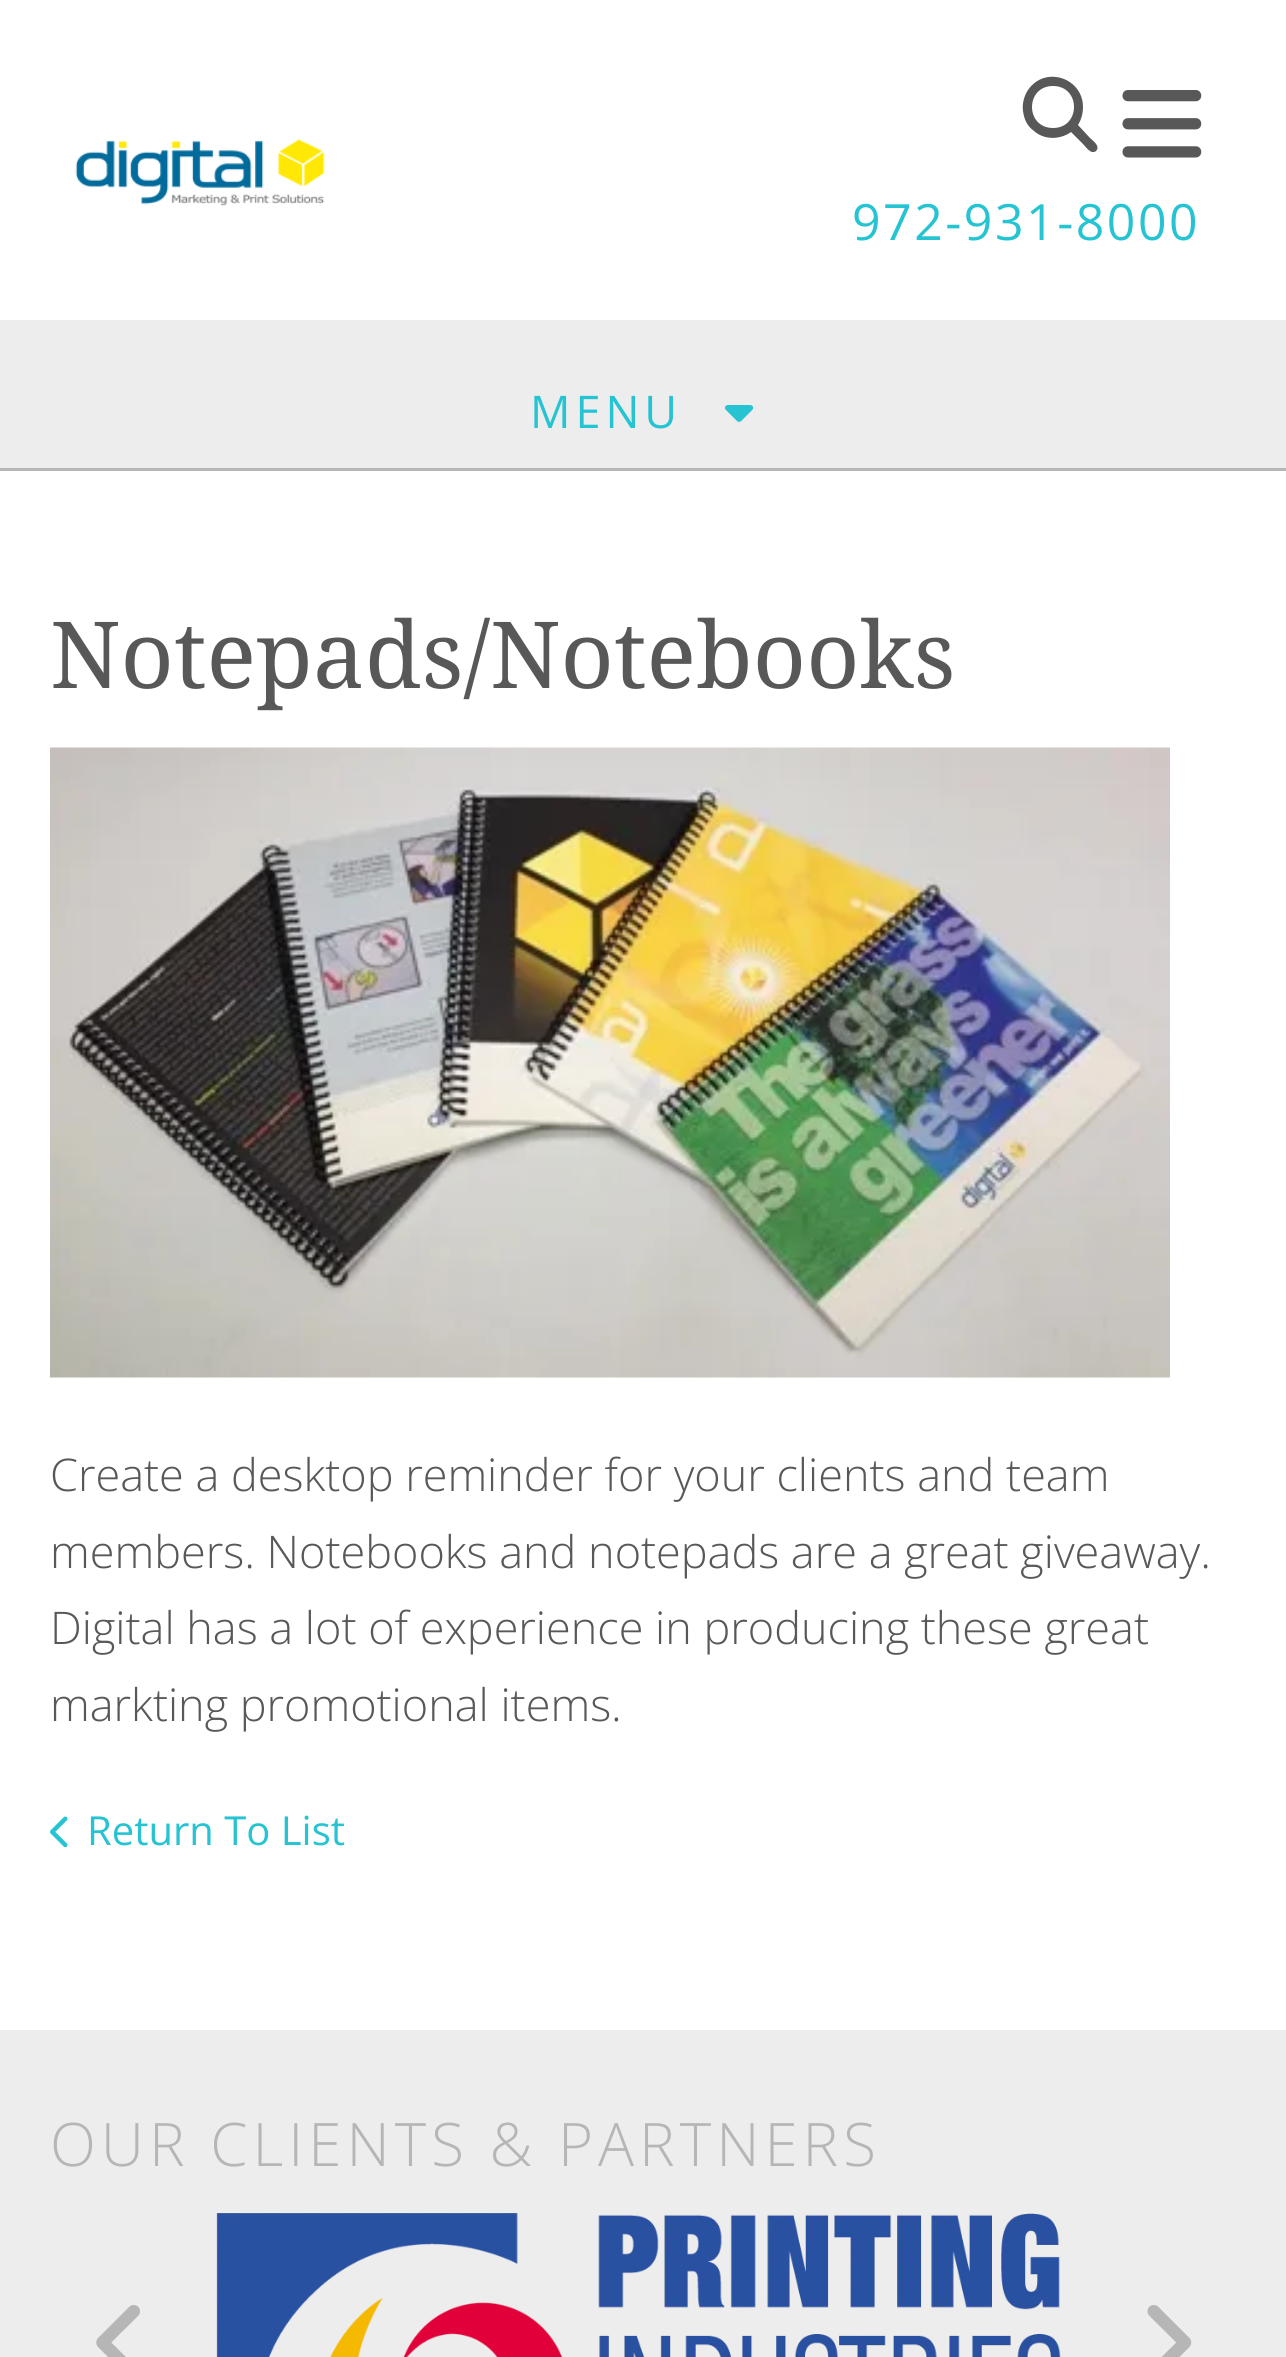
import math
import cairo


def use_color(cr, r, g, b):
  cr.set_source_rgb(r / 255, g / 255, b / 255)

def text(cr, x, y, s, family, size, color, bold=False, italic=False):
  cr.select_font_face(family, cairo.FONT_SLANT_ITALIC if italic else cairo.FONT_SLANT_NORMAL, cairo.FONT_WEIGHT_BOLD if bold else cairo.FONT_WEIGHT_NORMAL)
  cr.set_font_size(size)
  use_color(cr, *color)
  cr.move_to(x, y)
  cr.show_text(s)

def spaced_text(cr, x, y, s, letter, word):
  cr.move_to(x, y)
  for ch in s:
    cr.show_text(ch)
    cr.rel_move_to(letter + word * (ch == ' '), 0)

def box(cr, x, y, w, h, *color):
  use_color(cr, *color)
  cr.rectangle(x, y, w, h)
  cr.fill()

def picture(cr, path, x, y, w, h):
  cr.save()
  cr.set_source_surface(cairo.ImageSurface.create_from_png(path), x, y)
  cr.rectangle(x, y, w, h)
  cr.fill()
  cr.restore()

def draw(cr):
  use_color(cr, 255, 255, 255)
  cr.paint()
  picture(cr, "img_01.png", 75, 139, 250, 67)
  use_color(cr, 88, 88, 88)
  cr.new_path()
  cr.move_to(1083, 107)
  cr.curve_to(1083, 114, 1081, 120, 1078, 125)
  cr.line_to(1090, 138)
  cr.curve_to(1092, 140, 1101, 146, 1096, 151)
  cr.curve_to(1091, 155, 1086, 147, 1083, 144)
  cr.line_to(1071, 132)
  cr.curve_to(1060, 140, 1044, 140, 1034, 131)
  cr.curve_to(1027, 126, 1024, 119, 1023, 111)
  cr.curve_to(1022, 104, 1024, 96, 1028, 90)
  cr.curve_to(1045, 65, 1083, 78, 1083, 107)
  cr.close_path()
  cr.move_to(1053, 128)
  cr.curve_to(1081, 128, 1081, 86, 1053, 86)
  cr.curve_to(1025, 86, 1025, 128, 1053, 128)
  cr.close_path()
  cr.fill()
  picture(cr, "img_02.png", 1122, 90, 80, 68)
  box(cr, 0, 320, 1286, 148, 237, 237, 237)
  box(cr, 0, 468, 1286, 3, 182, 182, 182)
  picture(cr, "img_03.png", 725, 405, 29, 17)
  picture(cr, "img_04.png", 50, 747, 1120, 631)
  picture(cr, "img_05.png", 50, 1816, 18, 32)
  box(cr, 0, 2030, 1286, 327, 237, 237, 237)
  picture(cr, "img_06.png", 216, 2213, 845, 144)
  picture(cr, "img_07.png", 96, 2305, 44, 52)
  picture(cr, "img_08.png", 1147, 2305, 45, 52)
  cr.select_font_face("Open Sans")
  cr.set_font_size(50)
  use_color(cr, 38, 196, 210)
  spaced_text(cr, 852, 240, "972-931-8000", 2.5, 0)
  cr.set_font_size(45)
  spaced_text(cr, 530, 428, "MENU", 5, 0)
  text(cr, 50, 688, "Notepads/Notebooks", "Noto Serif", 92.5, (88, 88, 88))
  text(cr, 50, 1491, "Create a desktop reminder for your clients and team", "Open Sans Light", 45, (88, 88, 88))
  text(cr, 50, 1568, "members. Notebooks and notepads are a great giveaway.", "Open Sans Light", 45, (88, 88, 88))
  text(cr, 50, 1644, "Digital has a lot of experience in producing these great", "Open Sans Light", 45, (88, 88, 88))
  text(cr, 50, 1721, "markting promotional items.", "Open Sans Light", 45, (88, 88, 88))
  text(cr, 87, 1845, "Return To List", "Open Sans", 40, (38, 196, 210))
  cr.select_font_face("Open Sans Light")
  cr.set_font_size(60)
  use_color(cr, 182, 182, 182)
  spaced_text(cr, 50, 2166, "OUR CLIENTS & PARTNERS", 5, 0)


surface = cairo.ImageSurface(cairo.FORMAT_RGB24, 1286, 2357)
cr = cairo.Context(surface)
options = cairo.FontOptions()
options.set_hint_metrics(cairo.HINT_METRICS_OFF)
options.set_hint_style(cairo.HINT_STYLE_NONE)
cr.set_font_options(options)
cr.set_miter_limit(4)
draw(cr)
surface.write_to_png("out.png")
